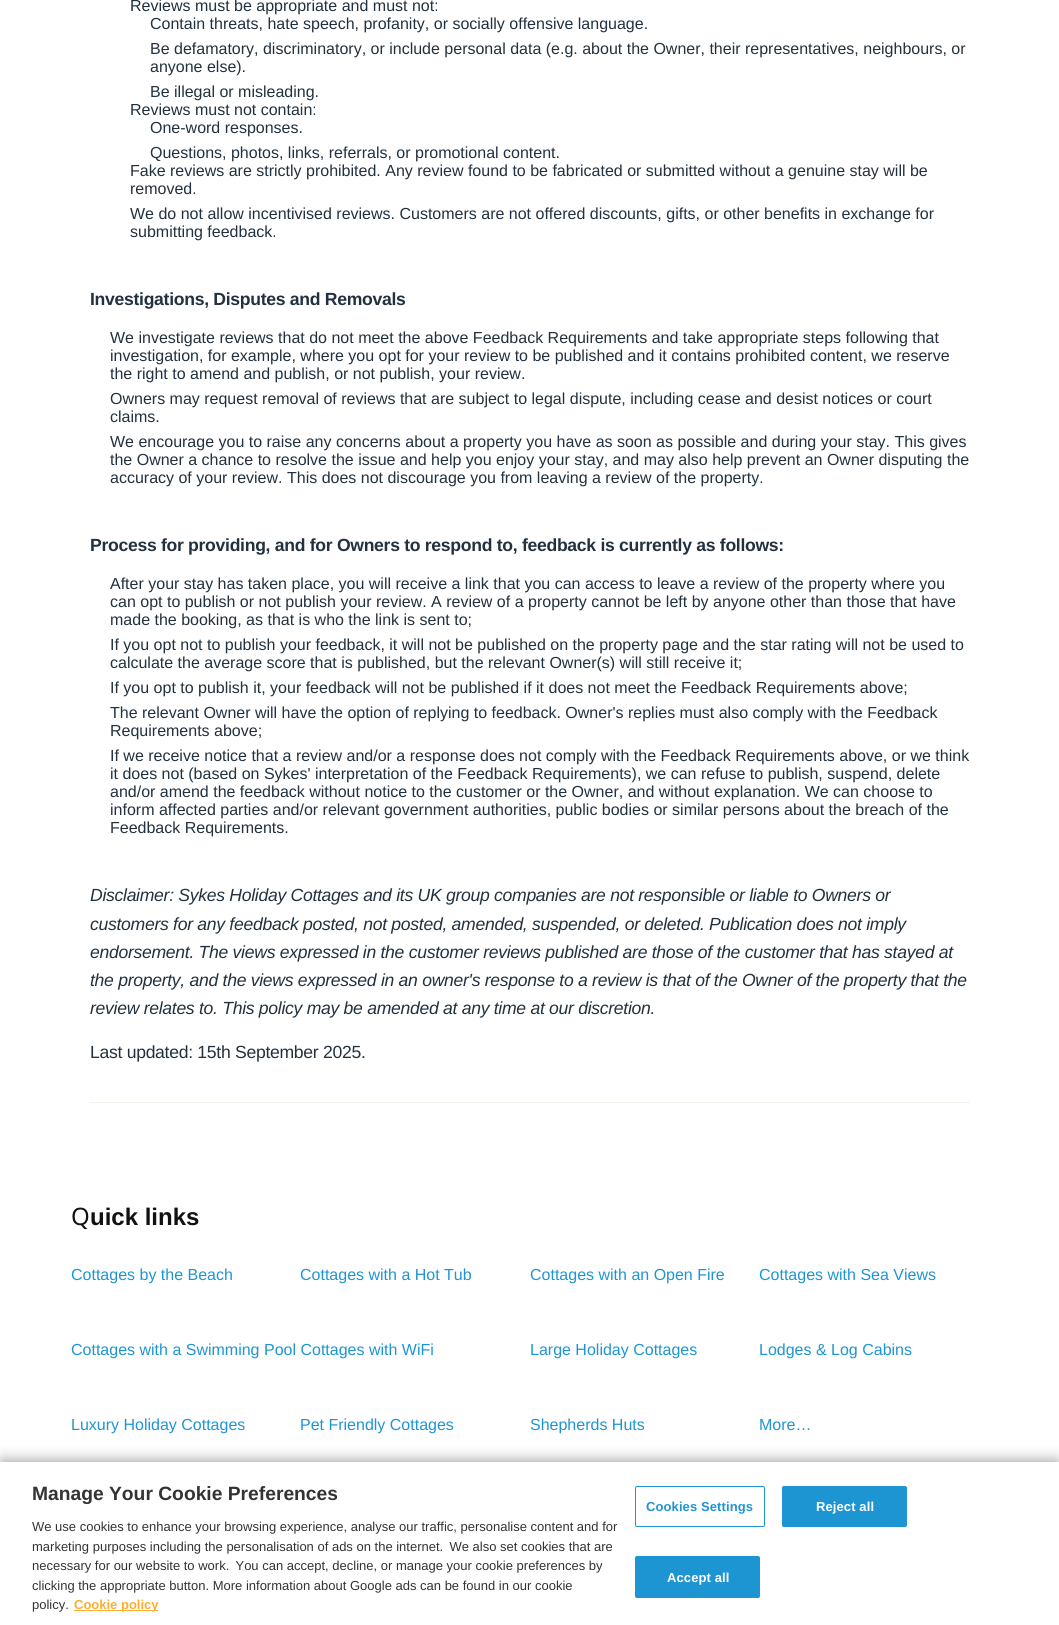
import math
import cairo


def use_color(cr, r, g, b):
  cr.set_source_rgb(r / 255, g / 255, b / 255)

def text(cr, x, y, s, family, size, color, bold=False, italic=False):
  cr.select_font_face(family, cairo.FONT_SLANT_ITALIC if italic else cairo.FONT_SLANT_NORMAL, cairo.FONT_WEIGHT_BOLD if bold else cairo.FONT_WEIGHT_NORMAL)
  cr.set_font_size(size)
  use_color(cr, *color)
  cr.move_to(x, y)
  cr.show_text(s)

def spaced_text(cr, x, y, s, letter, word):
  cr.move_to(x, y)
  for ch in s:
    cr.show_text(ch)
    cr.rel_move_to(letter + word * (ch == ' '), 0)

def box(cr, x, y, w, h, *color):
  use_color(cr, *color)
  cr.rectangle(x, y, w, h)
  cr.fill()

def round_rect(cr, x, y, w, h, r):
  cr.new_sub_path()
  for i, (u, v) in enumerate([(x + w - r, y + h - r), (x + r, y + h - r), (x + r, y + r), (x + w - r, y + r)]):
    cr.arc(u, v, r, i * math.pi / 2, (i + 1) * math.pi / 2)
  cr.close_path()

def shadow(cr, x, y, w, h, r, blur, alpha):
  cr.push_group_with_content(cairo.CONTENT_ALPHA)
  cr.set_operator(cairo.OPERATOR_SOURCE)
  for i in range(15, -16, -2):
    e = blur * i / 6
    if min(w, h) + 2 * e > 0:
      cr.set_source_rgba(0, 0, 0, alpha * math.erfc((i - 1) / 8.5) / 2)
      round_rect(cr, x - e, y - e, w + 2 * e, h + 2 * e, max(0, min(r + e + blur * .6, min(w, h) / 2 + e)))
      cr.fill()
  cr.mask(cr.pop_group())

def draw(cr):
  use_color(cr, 255, 255, 255)
  cr.paint()
  box(cr, 90, 1102, 880, 1, 244, 243, 238)
  use_color(cr, 0, 0, 0)
  shadow(cr, 2, 1460, 1055, 159, 0, 7, 0.35)
  box(cr, 0, 1462, 1059, 163, 255, 255, 255)
  box(cr, 74, 1610, 84, 1, 251, 174, 50)
  round_rect(cr, 635.5, 1486.5, 129, 40, 1.5)
  use_color(cr, 30, 149, 211)
  cr.set_line_width(1)
  cr.stroke()
  round_rect(cr, 782.5, 1486.5, 124, 40, 1.5)
  cr.fill_preserve()
  cr.stroke()
  round_rect(cr, 635.5, 1556.5, 124, 41, 1.5)
  cr.fill_preserve()
  cr.stroke()
  text(cr, 130, 11, "Reviews must be appropriate and must not:", "Liberation Sans", 16, (34, 49, 63))
  text(cr, 150, 29, "Contain threats, hate speech, profanity, or socially offensive language.", "Liberation Sans", 16, (34, 49, 63))
  text(cr, 150, 54, "Be defamatory, discriminatory, or include personal data (e.g. about the Owner, their representatives, neighbours, or", "Liberation Sans", 16, (34, 49, 63))
  text(cr, 150, 72, "anyone else).", "Liberation Sans", 16, (34, 49, 63))
  text(cr, 150, 97, "Be illegal or misleading.", "Liberation Sans", 16, (34, 49, 63))
  text(cr, 130, 115, "Reviews must not contain:", "Liberation Sans", 16, (34, 49, 63))
  text(cr, 150, 133, "One-word responses.", "Liberation Sans", 16, (34, 49, 63))
  text(cr, 150, 158, "Questions, photos, links, referrals, or promotional content.", "Liberation Sans", 16, (34, 49, 63))
  text(cr, 130, 176, "Fake reviews are strictly prohibited. Any review found to be fabricated or submitted without a genuine stay will be", "Liberation Sans", 16, (34, 49, 63))
  text(cr, 130, 194, "removed.", "Liberation Sans", 16, (34, 49, 63))
  text(cr, 130, 219, "We do not allow incentivised reviews. Customers are not offered discounts, gifts, or other benefits in exchange for", "Liberation Sans", 16, (34, 49, 63))
  text(cr, 130, 237, "submitting feedback.", "Liberation Sans", 16, (34, 49, 63))
  cr.select_font_face("Liberation Sans", cairo.FONT_SLANT_NORMAL, cairo.FONT_WEIGHT_BOLD)
  cr.set_font_size(17.6)
  spaced_text(cr, 90, 305, "Investigations, Disputes and Removals", -0.3, 0)
  text(cr, 110, 343, "We investigate reviews that do not meet the above Feedback Requirements and take appropriate steps following that", "Liberation Sans", 16, (34, 49, 63))
  text(cr, 110, 361, "investigation, for example, where you opt for your review to be published and it contains prohibited content, we reserve", "Liberation Sans", 16, (34, 49, 63))
  text(cr, 110, 379, "the right to amend and publish, or not publish, your review.", "Liberation Sans", 16, (34, 49, 63))
  text(cr, 110, 404, "Owners may request removal of reviews that are subject to legal dispute, including cease and desist notices or court", "Liberation Sans", 16, (34, 49, 63))
  text(cr, 110, 422, "claims.", "Liberation Sans", 16, (34, 49, 63))
  text(cr, 110, 447, "We encourage you to raise any concerns about a property you have as soon as possible and during your stay. This gives", "Liberation Sans", 16, (34, 49, 63))
  text(cr, 110, 465, "the Owner a chance to resolve the issue and help you enjoy your stay, and may also help prevent an Owner disputing the", "Liberation Sans", 16, (34, 49, 63))
  text(cr, 110, 483, "accuracy of your review. This does not discourage you from leaving a review of the property.", "Liberation Sans", 16, (34, 49, 63))
  cr.select_font_face("Liberation Sans", cairo.FONT_SLANT_NORMAL, cairo.FONT_WEIGHT_BOLD)
  cr.set_font_size(17.6)
  spaced_text(cr, 90, 551, "Process for providing, and for Owners to respond to, feedback is currently as follows:", -0.3, 0)
  text(cr, 110, 589, "After your stay has taken place, you will receive a link that you can access to leave a review of the property where you", "Liberation Sans", 16, (34, 49, 63))
  text(cr, 110, 607, "can opt to publish or not publish your review. A review of a property cannot be left by anyone other than those that have", "Liberation Sans", 16, (34, 49, 63))
  text(cr, 110, 625, "made the booking, as that is who the link is sent to;", "Liberation Sans", 16, (34, 49, 63))
  text(cr, 110, 650, "If you opt not to publish your feedback, it will not be published on the property page and the star rating will not be used to", "Liberation Sans", 16, (34, 49, 63))
  text(cr, 110, 668, "calculate the average score that is published, but the relevant Owner(s) will still receive it;", "Liberation Sans", 16, (34, 49, 63))
  text(cr, 110, 693, "If you opt to publish it, your feedback will not be published if it does not meet the Feedback Requirements above;", "Liberation Sans", 16, (34, 49, 63))
  text(cr, 110, 718, "The relevant Owner will have the option of replying to feedback. Owner's replies must also comply with the Feedback", "Liberation Sans", 16, (34, 49, 63))
  text(cr, 110, 736, "Requirements above;", "Liberation Sans", 16, (34, 49, 63))
  text(cr, 110, 761, "If we receive notice that a review and/or a response does not comply with the Feedback Requirements above, or we think", "Liberation Sans", 16, (34, 49, 63))
  text(cr, 110, 779, "it does not (based on Sykes' interpretation of the Feedback Requirements), we can refuse to publish, suspend, delete", "Liberation Sans", 16, (34, 49, 63))
  text(cr, 110, 797, "and/or amend the feedback without notice to the customer or the Owner, and without explanation. We can choose to", "Liberation Sans", 16, (34, 49, 63))
  text(cr, 110, 815, "inform affected parties and/or relevant government authorities, public bodies or similar persons about the breach of the", "Liberation Sans", 16, (34, 49, 63))
  text(cr, 110, 833, "Feedback Requirements.", "Liberation Sans", 16, (34, 49, 63))
  cr.select_font_face("Liberation Sans", cairo.FONT_SLANT_ITALIC)
  cr.set_font_size(17.6)
  spaced_text(cr, 90, 901, "Disclaimer: Sykes Holiday Cottages and its UK group companies are not responsible or liable to Owners or", -0.3, 0)
  spaced_text(cr, 90, 930, "customers for any feedback posted, not posted, amended, suspended, or deleted. Publication does not imply", -0.3, 0)
  spaced_text(cr, 90, 958, "endorsement. The views expressed in the customer reviews published are those of the customer that has stayed at", -0.3, 0)
  spaced_text(cr, 90, 986, "the property, and the views expressed in an owner's response to a review is that of the Owner of the property that the", -0.3, 0)
  spaced_text(cr, 90, 1014, "review relates to. This policy may be amended at any time at our discretion.", -0.3, 0)
  cr.select_font_face("Liberation Sans")
  spaced_text(cr, 90, 1058, "Last updated: 15th September 2025.", -0.3, 0)
  text(cr, 71, 1225, "Q", "Noto Sans", 24, (17, 17, 17))
  text(cr, 90, 1225, "uick links", "Liberation Sans", 24, (17, 17, 17), bold=True)
  text(cr, 71, 1280, "Cottages by the Beach", "Liberation Sans", 16, (30, 149, 211))
  text(cr, 300, 1280, "Cottages with a Hot Tub", "Liberation Sans", 16, (30, 149, 211))
  text(cr, 530, 1280, "Cottages with an Open Fire", "Liberation Sans", 16, (30, 149, 211))
  text(cr, 759, 1280, "Cottages with Sea Views", "Liberation Sans", 16, (30, 149, 211))
  text(cr, 71, 1355, "Cottages with a Swimming Pool Cottages with WiFi", "Liberation Sans", 16, (30, 149, 211))
  text(cr, 530, 1355, "Large Holiday Cottages", "Liberation Sans", 16, (30, 149, 211))
  text(cr, 759, 1355, "Lodges & Log Cabins", "Liberation Sans", 16, (30, 149, 211))
  text(cr, 71, 1430, "Luxury Holiday Cottages", "Liberation Sans", 16, (30, 149, 211))
  text(cr, 300, 1430, "Pet Friendly Cottages", "Liberation Sans", 16, (30, 149, 211))
  text(cr, 530, 1430, "Shepherds Huts", "Liberation Sans", 16, (30, 149, 211))
  text(cr, 759, 1430, "More…", "Liberation Sans", 16, (30, 149, 211))
  text(cr, 32, 1500, "Manage Your Cookie Preferences", "Liberation Sans", 19.25, (51, 51, 51), bold=True)
  text(cr, 32, 1531, "We use cookies to enhance your browsing experience, analyse our traffic, personalise content and for", "Liberation Sans", 13, (51, 51, 51))
  text(cr, 32, 1551, "marketing purposes including the personalisation of ads on the internet.  We also set cookies that are", "Liberation Sans", 13, (51, 51, 51))
  text(cr, 32, 1570, "necessary for our website to work.  You can accept, decline, or manage your cookie preferences by", "Liberation Sans", 13, (51, 51, 51))
  text(cr, 32, 1590, "clicking the appropriate button. More information about Google ads can be found in our cookie", "Liberation Sans", 13, (51, 51, 51))
  text(cr, 32, 1609, "policy.", "Liberation Sans", 13, (51, 51, 51))
  text(cr, 74, 1609, "Cookie policy", "Liberation Sans", 13, (251, 174, 50), bold=True)
  use_color(cr, 30, 149, 211)
  spaced_text(cr, 646, 1511, "Cookies Settings", 0.1, 0)
  use_color(cr, 255, 255, 255)
  spaced_text(cr, 816, 1511, "Reject all", 0.1, 0)
  spaced_text(cr, 667, 1582, "Accept all", 0.1, 0)


surface = cairo.ImageSurface(cairo.FORMAT_RGB24, 1059, 1625)
cr = cairo.Context(surface)
options = cairo.FontOptions()
options.set_hint_metrics(cairo.HINT_METRICS_OFF)
options.set_hint_style(cairo.HINT_STYLE_NONE)
cr.set_font_options(options)
cr.set_miter_limit(4)
draw(cr)
surface.write_to_png("out.png")
